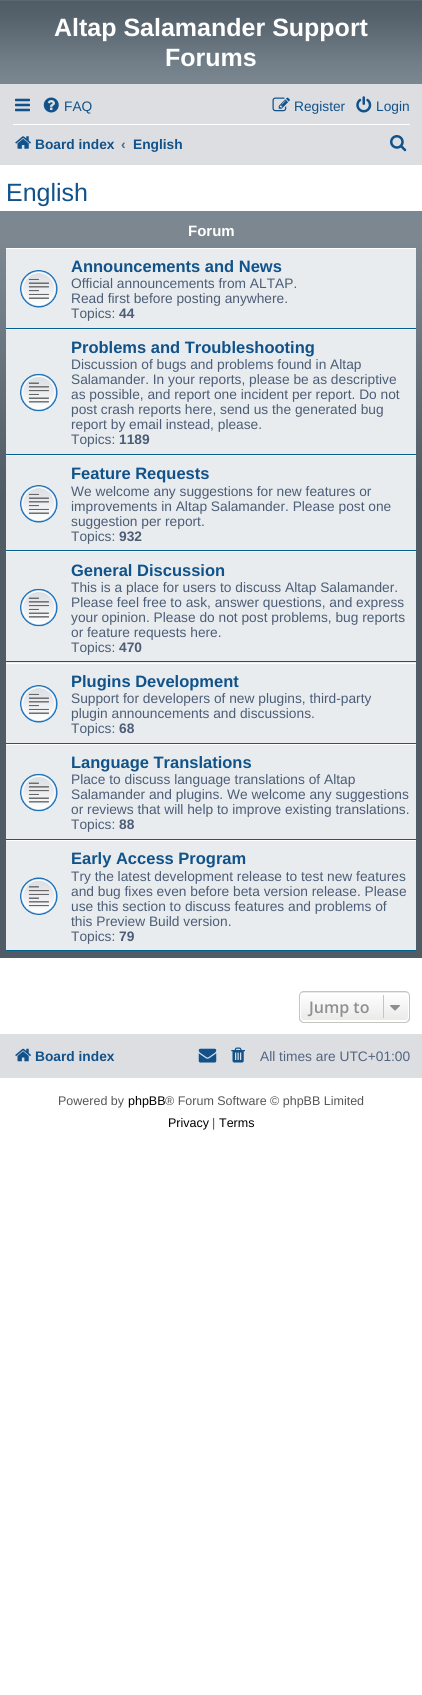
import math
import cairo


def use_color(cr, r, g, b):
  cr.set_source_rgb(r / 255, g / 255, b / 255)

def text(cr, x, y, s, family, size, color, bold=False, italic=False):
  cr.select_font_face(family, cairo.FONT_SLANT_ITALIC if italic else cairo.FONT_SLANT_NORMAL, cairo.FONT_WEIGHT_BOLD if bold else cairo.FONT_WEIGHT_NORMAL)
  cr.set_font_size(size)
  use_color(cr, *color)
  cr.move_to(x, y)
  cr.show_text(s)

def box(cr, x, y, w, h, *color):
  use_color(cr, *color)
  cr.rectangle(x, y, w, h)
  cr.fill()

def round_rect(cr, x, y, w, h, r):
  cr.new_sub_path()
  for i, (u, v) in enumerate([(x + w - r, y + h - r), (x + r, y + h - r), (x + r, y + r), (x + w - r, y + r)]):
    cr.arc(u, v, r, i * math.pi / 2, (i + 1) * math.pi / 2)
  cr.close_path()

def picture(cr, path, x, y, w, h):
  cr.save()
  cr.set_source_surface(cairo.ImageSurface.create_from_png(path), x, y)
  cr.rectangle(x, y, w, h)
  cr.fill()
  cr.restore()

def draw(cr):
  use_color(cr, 255, 255, 255)
  cr.paint()
  gradient = cairo.LinearGradient(211, 0, 211, 85)
  gradient.add_color_stop_rgba(0, 0.431, 0.467, 0.498, 1)
  gradient.add_color_stop_rgba(0.01, 0.314, 0.361, 0.396, 1)
  gradient.add_color_stop_rgba(0.2, 0.337, 0.384, 0.42, 1)
  gradient.add_color_stop_rgba(0.75, 0.451, 0.498, 0.533, 1)
  gradient.add_color_stop_rgba(1, 0.486, 0.533, 0.569, 1)
  cr.set_source(gradient)
  cr.rectangle(0, 0, 422, 84)
  cr.fill()
  box(cr, 0, 84, 422, 81, 220, 222, 226)
  picture(cr, "img_01.png", 15, 98, 15, 14)
  picture(cr, "img_02.png", 43, 97, 16, 16)
  picture(cr, "img_03.png", 272, 97, 18, 15)
  picture(cr, "img_04.png", 356, 96, 16, 17)
  box(cr, 13, 124, 397, 1, 255, 255, 255)
  picture(cr, "img_05.png", 15, 136, 16, 13)
  picture(cr, "img_06.png", 390, 135, 17, 17)
  gradient = cairo.LinearGradient(211, 211, 211, 958)
  gradient.add_color_stop_rgba(0, 0.486, 0.533, 0.569, 1)
  gradient.add_color_stop_rgba(0.04, 0.486, 0.529, 0.565, 1)
  gradient.add_color_stop_rgba(0.1, 0.463, 0.51, 0.545, 1)
  gradient.add_color_stop_rgba(0.29, 0.357, 0.4, 0.435, 1)
  gradient.add_color_stop_rgba(0.38, 0.314, 0.361, 0.396, 1)
  gradient.add_color_stop_rgba(1, 0.314, 0.361, 0.396, 1)
  cr.set_source(gradient)
  cr.rectangle(0, 211, 422, 747)
  cr.fill()
  box(cr, 6, 249, 410, 79, 232, 236, 238)
  box(cr, 6, 248, 410, 1, 255, 255, 255)
  box(cr, 6, 328, 410, 1, 0, 96, 143)
  picture(cr, "img_07.png", 20, 270, 38, 38)
  box(cr, 6, 330, 410, 124, 232, 236, 238)
  box(cr, 6, 329, 410, 1, 255, 255, 255)
  box(cr, 6, 454, 410, 1, 0, 96, 143)
  picture(cr, "img_08.png", 20, 373, 38, 39)
  box(cr, 6, 456, 410, 94, 232, 236, 238)
  box(cr, 6, 455, 410, 1, 255, 255, 255)
  box(cr, 6, 550, 410, 1, 0, 96, 143)
  picture(cr, "img_07.png", 20, 485, 38, 38)
  box(cr, 6, 552, 410, 111, 232, 236, 238)
  box(cr, 6, 551, 410, 1, 255, 255, 255)
  box(cr, 6, 661, 410, 1, 0, 96, 143)
  picture(cr, "img_09.png", 20, 588, 38, 39)
  box(cr, 6, 664, 410, 79, 232, 236, 238)
  box(cr, 6, 663, 410, 1, 255, 255, 255)
  box(cr, 6, 743, 410, 1, 0, 96, 143)
  picture(cr, "img_07.png", 20, 685, 38, 38)
  box(cr, 6, 745, 410, 94, 232, 236, 238)
  box(cr, 6, 744, 410, 1, 255, 255, 255)
  box(cr, 6, 839, 410, 1, 0, 96, 143)
  picture(cr, "img_10.png", 20, 773, 38, 39)
  box(cr, 6, 841, 410, 109, 232, 236, 238)
  box(cr, 6, 840, 410, 1, 255, 255, 255)
  box(cr, 6, 950, 410, 1, 0, 96, 143)
  picture(cr, "img_11.png", 20, 877, 38, 38)
  cr.save()
  round_rect(cr, 299, 991, 111, 32, 5)
  cr.clip()
  gradient = cairo.LinearGradient(354, 964, 354, 993)
  gradient.add_color_stop_rgba(0, 1, 1, 1, 1)
  gradient.add_color_stop_rgba(1, 0.914, 0.914, 0.914, 1)
  cr.set_source(gradient)
  cr.rectangle(299, 991, 111, 2)
  cr.fill()
  gradient = cairo.LinearGradient(354, 993, 354, 1021)
  gradient.add_color_stop_rgba(0, 1, 1, 1, 1)
  gradient.add_color_stop_rgba(1, 0.914, 0.914, 0.914, 1)
  cr.set_source(gradient)
  cr.rectangle(299, 993, 111, 28)
  cr.fill()
  cr.restore()
  round_rect(cr, 300.5, 993.5, 108, 27, 3.5)
  use_color(cr, 255, 255, 255)
  cr.set_line_width(1)
  cr.stroke()
  round_rect(cr, 299.5, 991.5, 110, 31, 4.5)
  use_color(cr, 199, 195, 191)
  cr.stroke()
  box(cr, 383, 995, 1, 23, 199, 195, 191)
  picture(cr, "img_12.png", 390, 1005, 10, 6)
  box(cr, 0, 1034, 422, 44, 220, 222, 226)
  picture(cr, "img_13.png", 15, 1048, 16, 14)
  picture(cr, "img_14.png", 198, 1048, 19, 15)
  picture(cr, "img_15.png", 231, 1047, 14, 16)
  text(cr, 54, 36, "Altap Salamander Support", "Liberation Sans", 25, (255, 255, 255), bold=True)
  text(cr, 165, 66, "Forums", "Liberation Sans", 25, (255, 255, 255), bold=True)
  text(cr, 64, 111, "FAQ", "Liberation Sans", 13.75, (16, 82, 137))
  text(cr, 294, 111, "Register", "Liberation Sans", 13.75, (16, 82, 137))
  text(cr, 376, 111, "Login", "Liberation Sans", 13.75, (16, 82, 137))
  text(cr, 35, 149, "Board index", "Liberation Sans", 13.75, (16, 82, 137), bold=True)
  text(cr, 121, 149, "‹", "Liberation Sans", 13.75, (83, 100, 130), bold=True)
  text(cr, 133, 149, "English", "Liberation Sans", 13.75, (16, 82, 137), bold=True)
  text(cr, 6, 201, "English", "Liberation Sans", 25, (16, 82, 137))
  text(cr, 188, 236, "Forum", "Liberation Sans", 15, (255, 255, 255), bold=True)
  text(cr, 71, 272, "Announcements and News", "Liberation Sans", 16.5, (16, 82, 137), bold=True)
  text(cr, 71, 288, "Official announcements from ALTAP.", "Liberation Sans", 13.75, (76, 93, 119))
  text(cr, 71, 303, "Read first before posting anywhere.", "Liberation Sans", 13.75, (76, 93, 119))
  text(cr, 71, 318, "Topics:", "Liberation Sans", 13.75, (76, 93, 119))
  text(cr, 119, 318, "44", "Liberation Sans", 13.75, (76, 93, 119), bold=True)
  text(cr, 71, 353, "Problems and Troubleshooting", "Liberation Sans", 16.5, (16, 82, 137), bold=True)
  text(cr, 71, 369, "Discussion of bugs and problems found in Altap", "Liberation Sans", 13.75, (76, 93, 119))
  text(cr, 71, 384, "Salamander. In your reports, please be as descriptive", "Liberation Sans", 13.75, (76, 93, 119))
  text(cr, 71, 399, "as possible, and report one incident per report. Do not", "Liberation Sans", 13.75, (76, 93, 119))
  text(cr, 71, 414, "post crash reports here, send us the generated bug", "Liberation Sans", 13.75, (76, 93, 119))
  text(cr, 71, 429, "report by email instead, please.", "Liberation Sans", 13.75, (76, 93, 119))
  text(cr, 71, 444, "Topics:", "Liberation Sans", 13.75, (76, 93, 119))
  text(cr, 119, 444, "1189", "Liberation Sans", 13.75, (76, 93, 119), bold=True)
  text(cr, 71, 479, "Feature Requests", "Liberation Sans", 16.5, (16, 82, 137), bold=True)
  text(cr, 71, 496, "We welcome any suggestions for new features or", "Liberation Sans", 13.75, (76, 93, 119))
  text(cr, 71, 511, "improvements in Altap Salamander. Please post one", "Liberation Sans", 13.75, (76, 93, 119))
  text(cr, 71, 526, "suggestion per report.", "Liberation Sans", 13.75, (76, 93, 119))
  text(cr, 71, 541, "Topics:", "Liberation Sans", 13.75, (76, 93, 119))
  text(cr, 119, 541, "932", "Liberation Sans", 13.75, (76, 93, 119), bold=True)
  text(cr, 71, 576, "General Discussion", "Liberation Sans", 16.5, (16, 82, 137), bold=True)
  text(cr, 71, 592, "This is a place for users to discuss Altap Salamander.", "Liberation Sans", 13.75, (76, 93, 119))
  text(cr, 71, 607, "Please feel free to ask, answer questions, and express", "Liberation Sans", 13.75, (76, 93, 119))
  text(cr, 71, 622, "your opinion. Please do not post problems, bug reports", "Liberation Sans", 13.75, (76, 93, 119))
  text(cr, 71, 637, "or feature requests here.", "Liberation Sans", 13.75, (76, 93, 119))
  text(cr, 71, 652, "Topics:", "Liberation Sans", 13.75, (76, 93, 119))
  text(cr, 119, 652, "470", "Liberation Sans", 13.75, (76, 93, 119), bold=True)
  text(cr, 71, 687, "Plugins Development", "Liberation Sans", 16.5, (16, 82, 137), bold=True)
  text(cr, 71, 703, "Support for developers of new plugins, third-party", "Liberation Sans", 13.75, (76, 93, 119))
  text(cr, 71, 718, "plugin announcements and discussions.", "Liberation Sans", 13.75, (76, 93, 119))
  text(cr, 71, 733, "Topics:", "Liberation Sans", 13.75, (76, 93, 119))
  text(cr, 119, 733, "68", "Liberation Sans", 13.75, (76, 93, 119), bold=True)
  text(cr, 71, 768, "Language Translations", "Liberation Sans", 16.5, (16, 82, 137), bold=True)
  text(cr, 71, 784, "Place to discuss language translations of Altap", "Liberation Sans", 13.75, (76, 93, 119))
  text(cr, 71, 799, "Salamander and plugins. We welcome any suggestions", "Liberation Sans", 13.75, (76, 93, 119))
  text(cr, 71, 814, "or reviews that will help to improve existing translations.", "Liberation Sans", 13.75, (76, 93, 119))
  text(cr, 71, 829, "Topics:", "Liberation Sans", 13.75, (76, 93, 119))
  text(cr, 119, 829, "88", "Liberation Sans", 13.75, (76, 93, 119), bold=True)
  text(cr, 71, 864, "Early Access Program", "Liberation Sans", 16.5, (16, 82, 137), bold=True)
  text(cr, 71, 881, "Try the latest development release to test new features", "Liberation Sans", 13.75, (76, 93, 119))
  text(cr, 71, 896, "and bug fixes even before beta version release. Please", "Liberation Sans", 13.75, (76, 93, 119))
  text(cr, 71, 911, "use this section to discuss features and problems of", "Liberation Sans", 13.75, (76, 93, 119))
  text(cr, 71, 926, "this Preview Build version.", "Liberation Sans", 13.75, (76, 93, 119))
  text(cr, 71, 941, "Topics:", "Liberation Sans", 13.75, (76, 93, 119))
  text(cr, 119, 941, "79", "Liberation Sans", 13.75, (76, 93, 119), bold=True)
  text(cr, 309, 1013, "Jump to", "Open Sans SemiBold", 16, (143, 143, 143))
  text(cr, 35, 1061, "Board index", "Liberation Sans", 13.75, (16, 82, 137), bold=True)
  text(cr, 260, 1061, "All times are UTC+01:00", "Liberation Sans", 13.75, (83, 100, 130))
  text(cr, 58, 1105, "Powered by", "Liberation Sans", 12.5, (85, 85, 85))
  text(cr, 128, 1105, "phpBB", "Liberation Sans", 12.5, (0, 0, 0))
  text(cr, 165, 1105, "® Forum Software © phpBB Limited", "Liberation Sans", 12.5, (85, 85, 85))
  text(cr, 168, 1127, "Privacy", "Liberation Sans", 12.5, (0, 0, 0))
  text(cr, 212, 1127, "|", "Liberation Sans", 12.5, (85, 85, 85))
  text(cr, 219, 1127, "Terms", "Liberation Sans", 12.5, (0, 0, 0))


surface = cairo.ImageSurface(cairo.FORMAT_RGB24, 422, 1695)
cr = cairo.Context(surface)
options = cairo.FontOptions()
options.set_hint_metrics(cairo.HINT_METRICS_OFF)
options.set_hint_style(cairo.HINT_STYLE_NONE)
cr.set_font_options(options)
cr.set_miter_limit(4)
draw(cr)
surface.write_to_png("out.png")
